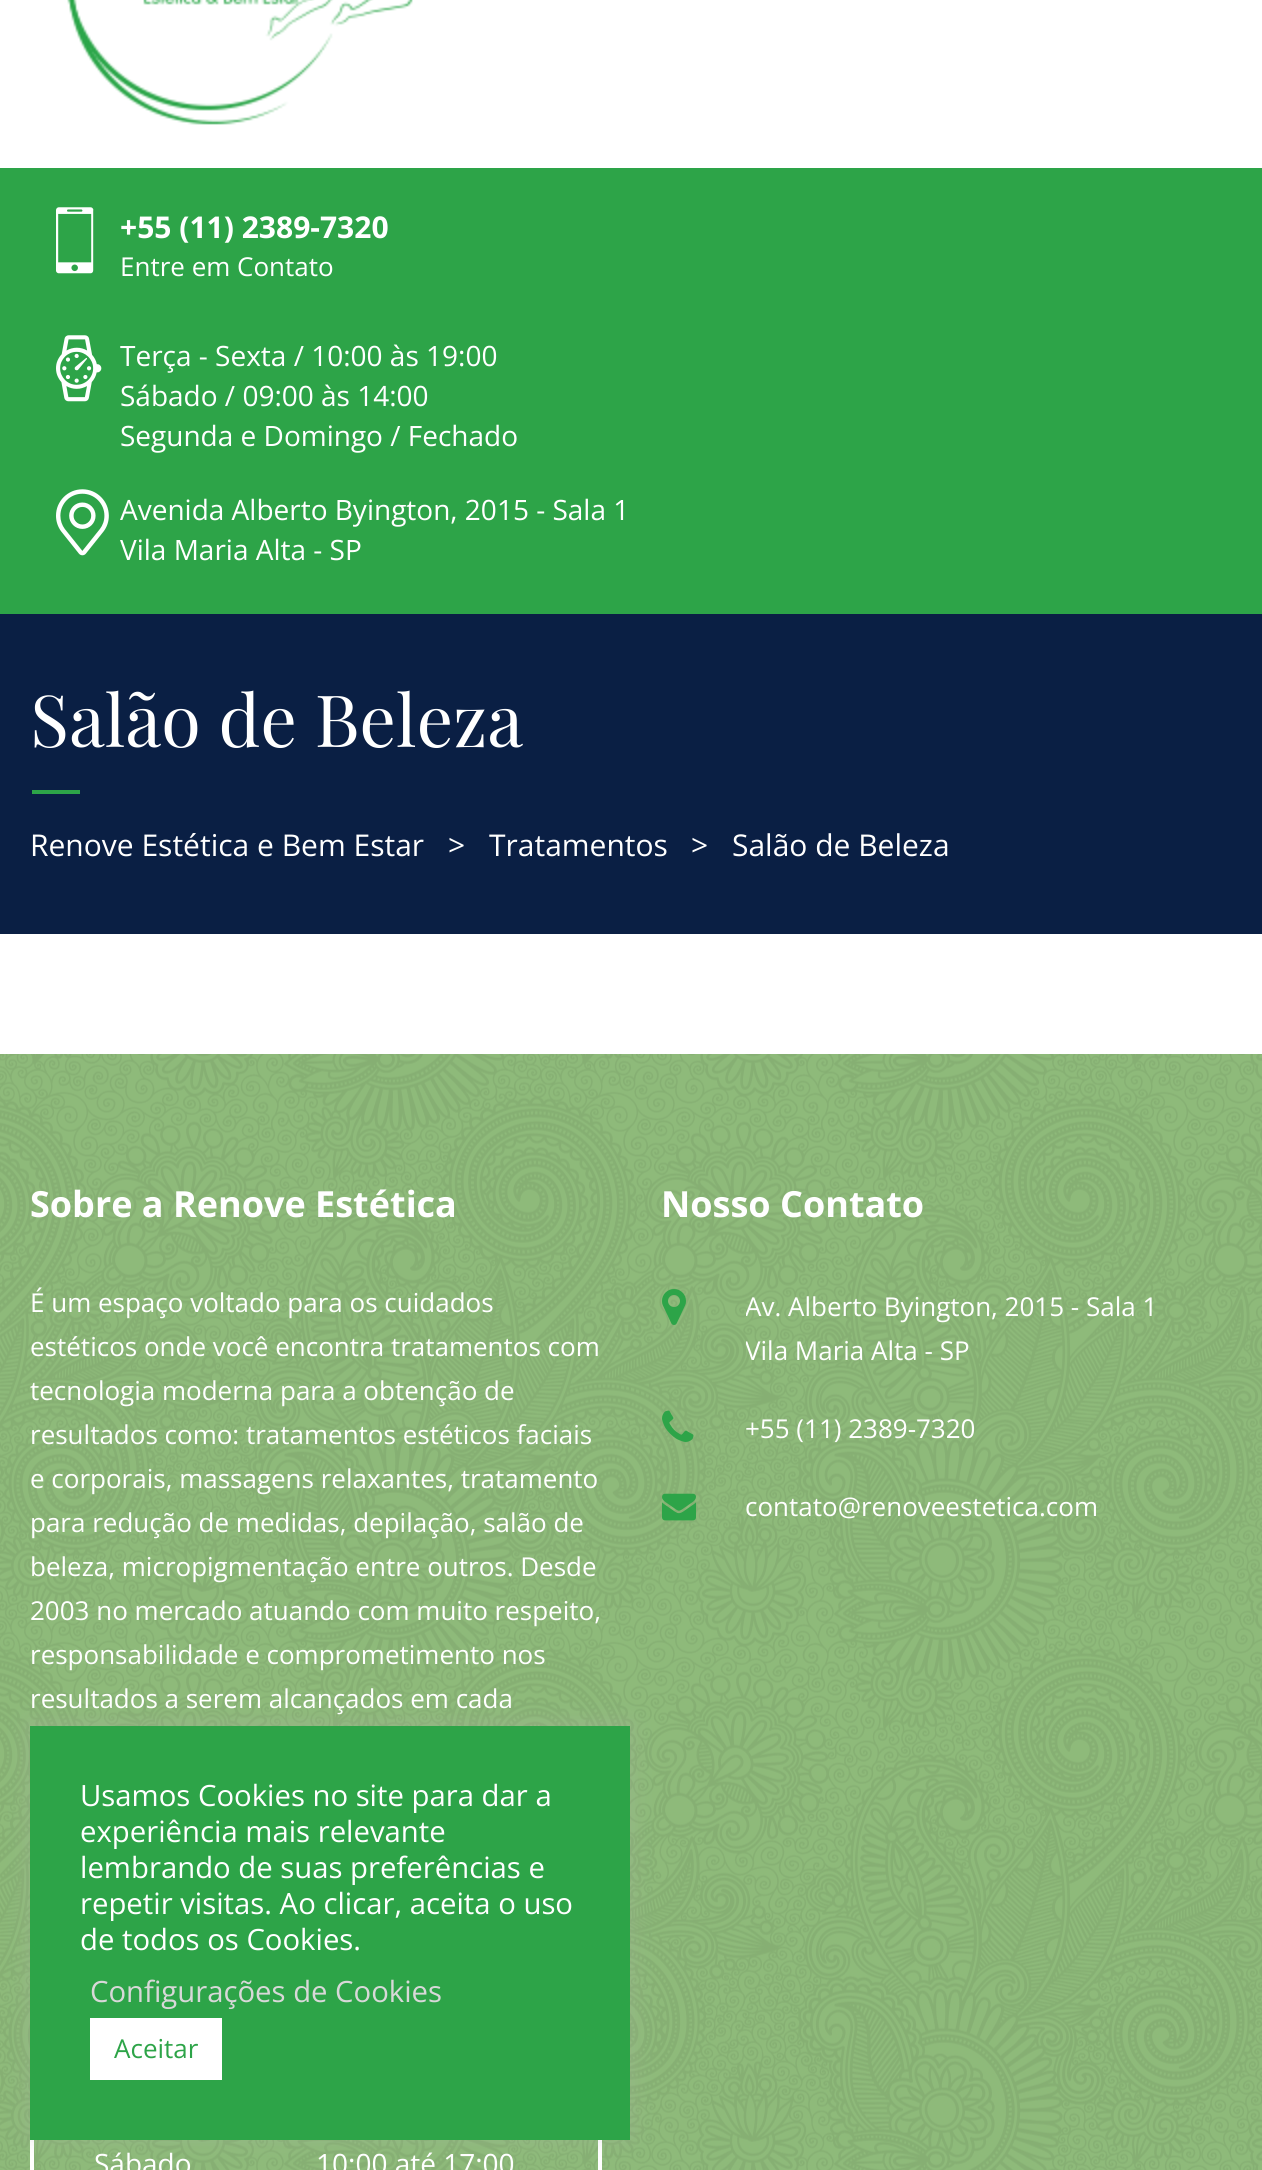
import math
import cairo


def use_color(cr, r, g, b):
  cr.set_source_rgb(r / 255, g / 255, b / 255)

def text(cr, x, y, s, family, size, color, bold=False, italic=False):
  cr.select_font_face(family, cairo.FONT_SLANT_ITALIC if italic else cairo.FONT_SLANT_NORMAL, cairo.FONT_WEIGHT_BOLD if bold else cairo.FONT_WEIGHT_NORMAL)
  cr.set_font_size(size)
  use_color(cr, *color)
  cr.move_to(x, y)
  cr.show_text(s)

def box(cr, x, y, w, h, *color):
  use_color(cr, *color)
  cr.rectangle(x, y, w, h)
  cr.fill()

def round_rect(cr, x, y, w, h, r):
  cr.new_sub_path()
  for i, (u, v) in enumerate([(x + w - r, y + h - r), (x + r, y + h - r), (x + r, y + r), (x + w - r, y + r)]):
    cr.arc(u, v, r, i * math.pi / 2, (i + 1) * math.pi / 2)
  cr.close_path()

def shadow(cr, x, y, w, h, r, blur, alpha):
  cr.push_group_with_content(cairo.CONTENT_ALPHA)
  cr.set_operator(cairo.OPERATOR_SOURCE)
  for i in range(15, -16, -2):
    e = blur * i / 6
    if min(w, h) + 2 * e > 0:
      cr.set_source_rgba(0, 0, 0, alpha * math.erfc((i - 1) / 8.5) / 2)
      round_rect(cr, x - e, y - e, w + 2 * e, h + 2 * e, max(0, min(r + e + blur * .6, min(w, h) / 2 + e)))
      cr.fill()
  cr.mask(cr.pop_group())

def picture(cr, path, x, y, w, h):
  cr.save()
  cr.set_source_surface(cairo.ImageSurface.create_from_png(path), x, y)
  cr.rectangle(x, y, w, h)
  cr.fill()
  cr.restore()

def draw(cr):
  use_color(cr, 255, 255, 255)
  cr.paint()
  picture(cr, "img_01.png", 67, 0, 346, 125)
  box(cr, 0, 168, 1262, 446, 45, 164, 72)
  picture(cr, "img_02.png", 56, 207, 38, 67)
  picture(cr, "img_03.png", 56, 335, 46, 67)
  picture(cr, "img_04.png", 56, 489, 53, 67)
  box(cr, 0, 614, 1262, 320, 10, 31, 68)
  box(cr, 32, 790, 48, 4, 45, 164, 72)
  box(cr, 0, 1054, 1262, 1116, 142, 186, 122)
  picture(cr, "img_05.png", 0, 1054, 1262, 1116)
  picture(cr, "img_06.png", 662, 1289, 24, 36)
  picture(cr, "img_07.png", 662, 1410, 32, 32)
  picture(cr, "img_08.png", 662, 1493, 34, 28)
  box(cr, 598, 2140, 4, 30, 255, 255, 255)
  box(cr, 30, 2140, 4, 30, 255, 255, 255)
  use_color(cr, 172, 171, 171)
  shadow(cr, 30, 1724, 600, 414, 0, 10, 0.3)
  box(cr, 30, 1726, 600, 414, 45, 164, 72)
  box(cr, 90, 2018, 132, 62, 255, 255, 255)
  text(cr, 120, 238, "+55 (11) 2389-7320", "Open Sans", 30, (255, 255, 255), bold=True)
  text(cr, 120, 276, "Entre em Contato", "Open Sans", 26, (255, 255, 255))
  text(cr, 120, 366, "Terça - Sexta / 10:00 às 19:00", "Open Sans", 28, (255, 255, 255))
  text(cr, 120, 406, "Sábado / 09:00 às 14:00", "Open Sans", 28, (255, 255, 255))
  text(cr, 120, 446, "Segunda e Domingo / Fechado", "Open Sans", 28, (255, 255, 255))
  text(cr, 120, 520, "Avenida Alberto Byington, 2015 - Sala 1", "Open Sans", 28, (255, 255, 255))
  text(cr, 120, 560, "Vila Maria Alta - SP", "Open Sans", 28, (255, 255, 255))
  text(cr, 30, 747, "Salão de Beleza", "Playfair Display", 72, (255, 255, 255))
  text(cr, 30, 856, "Renove Estética e Bem Estar", "Open Sans", 30, (255, 255, 255))
  text(cr, 448, 856, ">", "Open Sans", 30, (255, 255, 255))
  text(cr, 489, 856, "Tratamentos", "Open Sans", 30, (255, 255, 255))
  text(cr, 691, 856, ">", "Open Sans", 30, (255, 255, 255))
  text(cr, 732, 856, "Salão de Beleza", "Open Sans", 30, (255, 255, 255))
  text(cr, 30, 1217, "Sobre a Renove Estética", "Open Sans", 36, (255, 255, 255), bold=True)
  text(cr, 30, 1312, "É um espaço voltado para os cuidados", "Open Sans", 26, (255, 255, 255))
  text(cr, 30, 1356, "estéticos onde você encontra tratamentos com", "Open Sans", 26, (255, 255, 255))
  text(cr, 30, 1400, "tecnologia moderna para a obtenção de", "Open Sans", 26, (255, 255, 255))
  text(cr, 30, 1444, "resultados como: tratamentos estéticos faciais", "Open Sans", 26, (255, 255, 255))
  text(cr, 30, 1488, "e corporais, massagens relaxantes, tratamento", "Open Sans", 26, (255, 255, 255))
  text(cr, 30, 1532, "para redução de medidas, depilação, salão de", "Open Sans", 26, (255, 255, 255))
  text(cr, 30, 1576, "beleza, micropigmentação entre outros. Desde", "Open Sans", 26, (255, 255, 255))
  text(cr, 30, 1620, "2003 no mercado atuando com muito respeito,", "Open Sans", 26, (255, 255, 255))
  text(cr, 30, 1664, "responsabilidade e comprometimento nos", "Open Sans", 26, (255, 255, 255))
  text(cr, 30, 1708, "resultados a serem alcançados em cada", "Open Sans", 26, (255, 255, 255))
  text(cr, 661, 1217, "Nosso Contato", "Open Sans", 36, (255, 255, 255), bold=True)
  cr.save()
  cr.rectangle(746, 1280, 486, 92)
  cr.clip()
  text(cr, 745, 1316, "Av. Alberto Byington, 2015 - Sala 1", "Open Sans", 26, (255, 255, 255))
  text(cr, 745, 1360, "Vila Maria Alta - SP", "Open Sans", 26, (255, 255, 255))
  cr.restore()
  text(cr, 745, 1438, "+55 (11) 2389-7320", "Open Sans", 26, (255, 255, 255))
  text(cr, 745, 1516, "contato@renoveestetica.com", "Open Sans", 26, (255, 255, 255))
  text(cr, 94, 2174, "Sábado", "Open Sans", 28, (255, 255, 255))
  text(cr, 316, 2174, "10:00 até 17:00", "Open Sans", 28, (255, 255, 255))
  text(cr, 80, 1806, "Usamos Cookies no site para dar a", "Open Sans", 29.3, (255, 255, 255))
  text(cr, 80, 1842, "experiência mais relevante", "Open Sans", 29.3, (255, 255, 255))
  text(cr, 80, 1878, "lembrando de suas preferências e", "Open Sans", 29.3, (255, 255, 255))
  text(cr, 80, 1914, "repetir visitas. Ao clicar, aceita o uso", "Open Sans", 29.3, (255, 255, 255))
  text(cr, 80, 1950, "de todos os Cookies.", "Open Sans", 29.3, (255, 255, 255))
  text(cr, 90, 2002, "Configurações de Cookies", "Open Sans", 29.3, (216, 216, 216))
  text(cr, 114, 2058, "Aceitar", "Open Sans", 26, (45, 164, 72))


surface = cairo.ImageSurface(cairo.FORMAT_RGB24, 1262, 2170)
cr = cairo.Context(surface)
options = cairo.FontOptions()
options.set_hint_metrics(cairo.HINT_METRICS_OFF)
options.set_hint_style(cairo.HINT_STYLE_NONE)
cr.set_font_options(options)
cr.set_miter_limit(4)
draw(cr)
surface.write_to_png("out.png")
